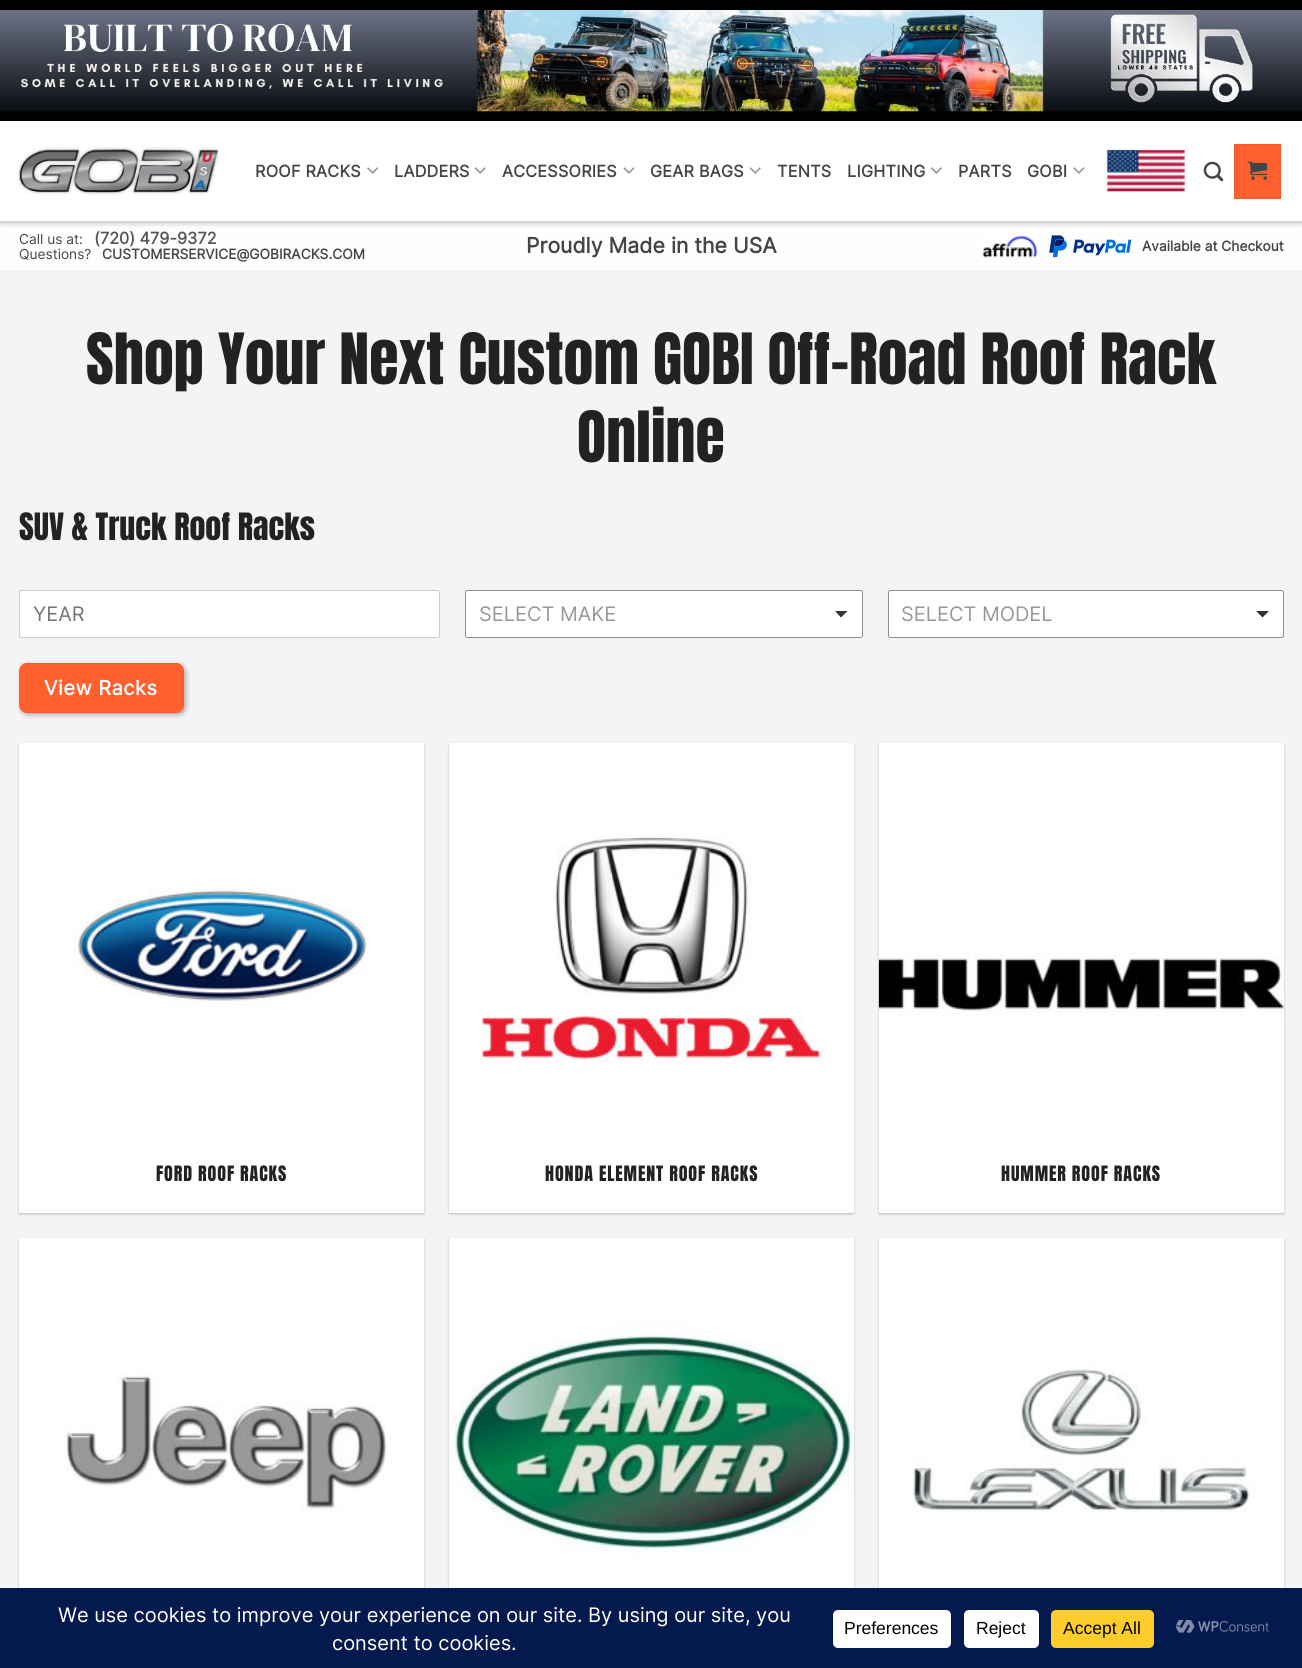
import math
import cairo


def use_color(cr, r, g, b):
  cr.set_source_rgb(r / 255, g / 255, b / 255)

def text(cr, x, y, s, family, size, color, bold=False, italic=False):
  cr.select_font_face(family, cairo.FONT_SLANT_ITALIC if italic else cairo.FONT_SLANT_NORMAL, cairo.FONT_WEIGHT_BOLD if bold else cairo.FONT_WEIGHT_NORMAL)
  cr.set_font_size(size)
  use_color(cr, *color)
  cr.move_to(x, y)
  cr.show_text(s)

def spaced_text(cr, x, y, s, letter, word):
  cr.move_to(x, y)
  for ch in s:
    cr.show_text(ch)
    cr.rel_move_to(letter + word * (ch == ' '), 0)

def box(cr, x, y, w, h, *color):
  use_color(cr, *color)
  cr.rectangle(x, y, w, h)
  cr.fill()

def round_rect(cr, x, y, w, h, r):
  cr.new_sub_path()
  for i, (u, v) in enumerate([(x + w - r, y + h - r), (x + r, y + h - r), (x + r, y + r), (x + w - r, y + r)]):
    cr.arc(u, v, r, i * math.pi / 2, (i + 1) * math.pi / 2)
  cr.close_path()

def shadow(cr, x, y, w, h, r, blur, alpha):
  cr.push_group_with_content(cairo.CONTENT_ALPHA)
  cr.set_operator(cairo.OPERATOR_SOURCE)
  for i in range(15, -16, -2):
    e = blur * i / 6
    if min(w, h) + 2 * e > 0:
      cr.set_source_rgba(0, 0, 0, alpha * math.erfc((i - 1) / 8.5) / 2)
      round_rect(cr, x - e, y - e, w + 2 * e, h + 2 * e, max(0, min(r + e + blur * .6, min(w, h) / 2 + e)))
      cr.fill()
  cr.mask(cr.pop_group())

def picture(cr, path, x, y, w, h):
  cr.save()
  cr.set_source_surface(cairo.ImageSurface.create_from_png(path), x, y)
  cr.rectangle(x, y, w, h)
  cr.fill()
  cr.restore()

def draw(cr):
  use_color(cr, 244, 244, 244)
  cr.paint()
  box(cr, 0, 221, 1302, 49, 254, 254, 254)
  use_color(cr, 0, 0, 0)
  shadow(cr, 0, 124, 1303, 100, 0, 2.5, 0.2)
  box(cr, 0, 0, 1302, 121, 0, 0, 0)
  picture(cr, "img_01.png", 0, 10, 1302, 102)
  box(cr, 0, 121, 1302, 100, 255, 255, 255)
  picture(cr, "img_02.png", 18, 147, 201, 48)
  picture(cr, "img_03.png", 367, 167, 12, 7)
  picture(cr, "img_04.png", 474, 167, 12, 7)
  picture(cr, "img_05.png", 623, 167, 12, 7)
  picture(cr, "img_04.png", 749, 167, 12, 7)
  picture(cr, "img_06.png", 930, 167, 12, 7)
  picture(cr, "img_05.png", 1073, 167, 12, 7)
  picture(cr, "img_07.png", 1106, 149, 80, 43)
  picture(cr, "img_08.png", 1203, 161, 21, 21)
  use_color(cr, 255, 96, 45)
  cr.rectangle(1234.5, 144.5, 46, 54)
  cr.fill_preserve()
  use_color(cr, 242, 91, 43)
  cr.set_line_width(1)
  cr.stroke()
  picture(cr, "img_09.png", 1247, 161, 20, 19)
  picture(cr, "img_10.png", 982, 236, 56, 22)
  picture(cr, "img_11.png", 1049, 235, 83, 23)
  use_color(cr, 255, 255, 255)
  round_rect(cr, 19.5, 590.5, 420, 47, 2)
  cr.fill_preserve()
  use_color(cr, 204, 204, 204)
  cr.stroke()
  use_color(cr, 255, 255, 255)
  round_rect(cr, 465.5, 590.5, 397, 47, 2)
  cr.fill_preserve()
  use_color(cr, 140, 143, 148)
  cr.stroke()
  use_color(cr, 51, 51, 51)
  cr.new_path()
  cr.move_to(835, 611)
  cr.line_to(847.5, 611)
  cr.line_to(841, 617.5)
  cr.close_path()
  cr.fill()
  use_color(cr, 255, 255, 255)
  round_rect(cr, 888.5, 590.5, 395, 47, 2)
  cr.fill_preserve()
  use_color(cr, 140, 143, 148)
  cr.stroke()
  use_color(cr, 51, 51, 51)
  cr.new_path()
  cr.move_to(1256, 611)
  cr.line_to(1269, 611)
  cr.line_to(1262.5, 617.5)
  cr.close_path()
  cr.fill()
  use_color(cr, 0, 0, 0)
  shadow(cr, 21, 665, 165, 50, 8, 2.5, 0.3)
  use_color(cr, 255, 96, 45)
  round_rect(cr, 19, 663, 165, 50, 8)
  cr.fill()
  cr.rectangle(19.5, 663.5, 164, 49)
  cr.set_source_rgba(0, 0, 0, 0.05)
  cr.stroke()
  use_color(cr, 0, 0, 0)
  shadow(cr, 19, 744, 405, 470, 0, 1, 0.24)
  box(cr, 19, 743, 405, 470, 255, 255, 255)
  picture(cr, "img_12.png", 73, 888, 298, 119)
  use_color(cr, 0, 0, 0)
  shadow(cr, 449, 744, 405, 470, 0, 1, 0.24)
  box(cr, 449, 743, 405, 470, 255, 255, 255)
  picture(cr, "img_13.png", 481, 836, 346, 226)
  use_color(cr, 0, 0, 0)
  shadow(cr, 879, 744, 405, 470, 0, 1, 0.24)
  box(cr, 879, 743, 405, 470, 255, 255, 255)
  picture(cr, "img_14.png", 878, 953, 406, 65)
  use_color(cr, 0, 0, 0)
  shadow(cr, 19, 1239, 405, 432, 0, 1, 0.24)
  box(cr, 19, 1238, 405, 350, 255, 255, 255)
  picture(cr, "img_15.png", 64, 1372, 323, 141)
  use_color(cr, 0, 0, 0)
  shadow(cr, 449, 1239, 405, 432, 0, 1, 0.24)
  box(cr, 449, 1238, 405, 350, 255, 255, 255)
  picture(cr, "img_16.png", 449, 1318, 405, 239)
  use_color(cr, 0, 0, 0)
  shadow(cr, 879, 1239, 405, 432, 0, 1, 0.24)
  box(cr, 879, 1238, 405, 350, 255, 255, 255)
  picture(cr, "img_17.png", 911, 1364, 344, 149)
  box(cr, 0, 1588, 1302, 80, 4, 25, 78)
  use_color(cr, 255, 255, 255)
  round_rect(cr, 833, 1610, 118, 38, 5)
  cr.fill()
  round_rect(cr, 964, 1610, 75, 38, 5)
  cr.fill()
  use_color(cr, 255, 205, 42)
  round_rect(cr, 1051, 1610, 103, 38, 5)
  cr.fill()
  picture(cr, "img_18.png", 1176, 1620, 93, 13)
  cr.select_font_face("Inter", cairo.FONT_SLANT_NORMAL, cairo.FONT_WEIGHT_BOLD)
  cr.set_font_size(16.25)
  use_color(cr, 67, 69, 73)
  spaced_text(cr, 255, 177, "ROOF RACKS", 0.25, 0)
  spaced_text(cr, 394, 177, "LADDERS", 0.25, 0)
  spaced_text(cr, 502, 177, "ACCESSORIES", 0.25, 0)
  spaced_text(cr, 650, 177, "GEAR BAGS", 0.25, 0)
  spaced_text(cr, 777, 177, "TENTS", 0.25, 0)
  spaced_text(cr, 847, 177, "LIGHTING", 0.25, 0)
  spaced_text(cr, 958, 177, "PARTS", 0.25, 0)
  spaced_text(cr, 1027, 177, "GOBI", 0.25, 0)
  text(cr, 19, 244, "Call us at:", "Inter", 13.75, (67, 69, 73))
  text(cr, 94, 244, "(720) 479-9372", "Inter", 16.25, (85, 85, 85), bold=True)
  text(cr, 19, 259, "Questions?", "Inter", 13.75, (67, 69, 73))
  text(cr, 102, 259, "CUSTOMERSERVICE@GOBIRACKS.COM", "Inter", 13.75, (67, 69, 73), bold=True)
  text(cr, 526, 253, "Proudly Made in the USA", "Inter", 21.25, (67, 69, 73), bold=True)
  text(cr, 1142, 251, "Available at Checkout", "Inter", 13.75, (67, 69, 73), bold=True)
  text(cr, 86, 384, "Shop Your Next Custom GOBI Off-Road Roof Rack", "Anton", 60, (34, 34, 34))
  text(cr, 577, 462, "Online", "Anton", 60, (34, 34, 34))
  text(cr, 19, 540, "SUV & Truck Roof Racks", "Anton", 32, (34, 34, 34))
  text(cr, 33, 621, "YEAR", "Inter", 20, (117, 117, 117))
  text(cr, 479, 621, "SELECT MAKE", "Inter", 20, (150, 153, 156))
  text(cr, 901, 621, "SELECT MODEL", "Inter", 20, (150, 153, 156))
  cr.select_font_face("Inter", cairo.FONT_SLANT_NORMAL, cairo.FONT_WEIGHT_BOLD)
  use_color(cr, 255, 255, 255)
  spaced_text(cr, 44, 695, "View Racks", 0.5, 0)
  cr.select_font_face("Anton")
  cr.set_font_size(18)
  use_color(cr, 34, 34, 34)
  spaced_text(cr, 156, 1181, "FORD ROOF RACKS", 0.9, 0)
  spaced_text(cr, 545, 1181, "HONDA ELEMENT ROOF RACKS", 0.9, 0)
  spaced_text(cr, 1001, 1181, "HUMMER ROOF RACKS", 0.9, 0)
  text(cr, 58, 1622, "We use cookies to improve your experience on our site. By using our site, you", "Inter", 20, (255, 255, 255))
  text(cr, 332, 1650, "consent to cookies.", "Inter", 20, (255, 255, 255))
  text(cr, 844, 1634, "Preferences", "Liberation Sans", 17.5, (0, 0, 0))
  text(cr, 976, 1634, "Reject", "Liberation Sans", 17.5, (0, 0, 0))
  text(cr, 1063, 1634, "Accept All", "Liberation Sans", 17.5, (0, 0, 0))


surface = cairo.ImageSurface(cairo.FORMAT_RGB24, 1302, 1668)
cr = cairo.Context(surface)
options = cairo.FontOptions()
options.set_hint_metrics(cairo.HINT_METRICS_OFF)
options.set_hint_style(cairo.HINT_STYLE_NONE)
cr.set_font_options(options)
cr.set_miter_limit(4)
draw(cr)
surface.write_to_png("out.png")
